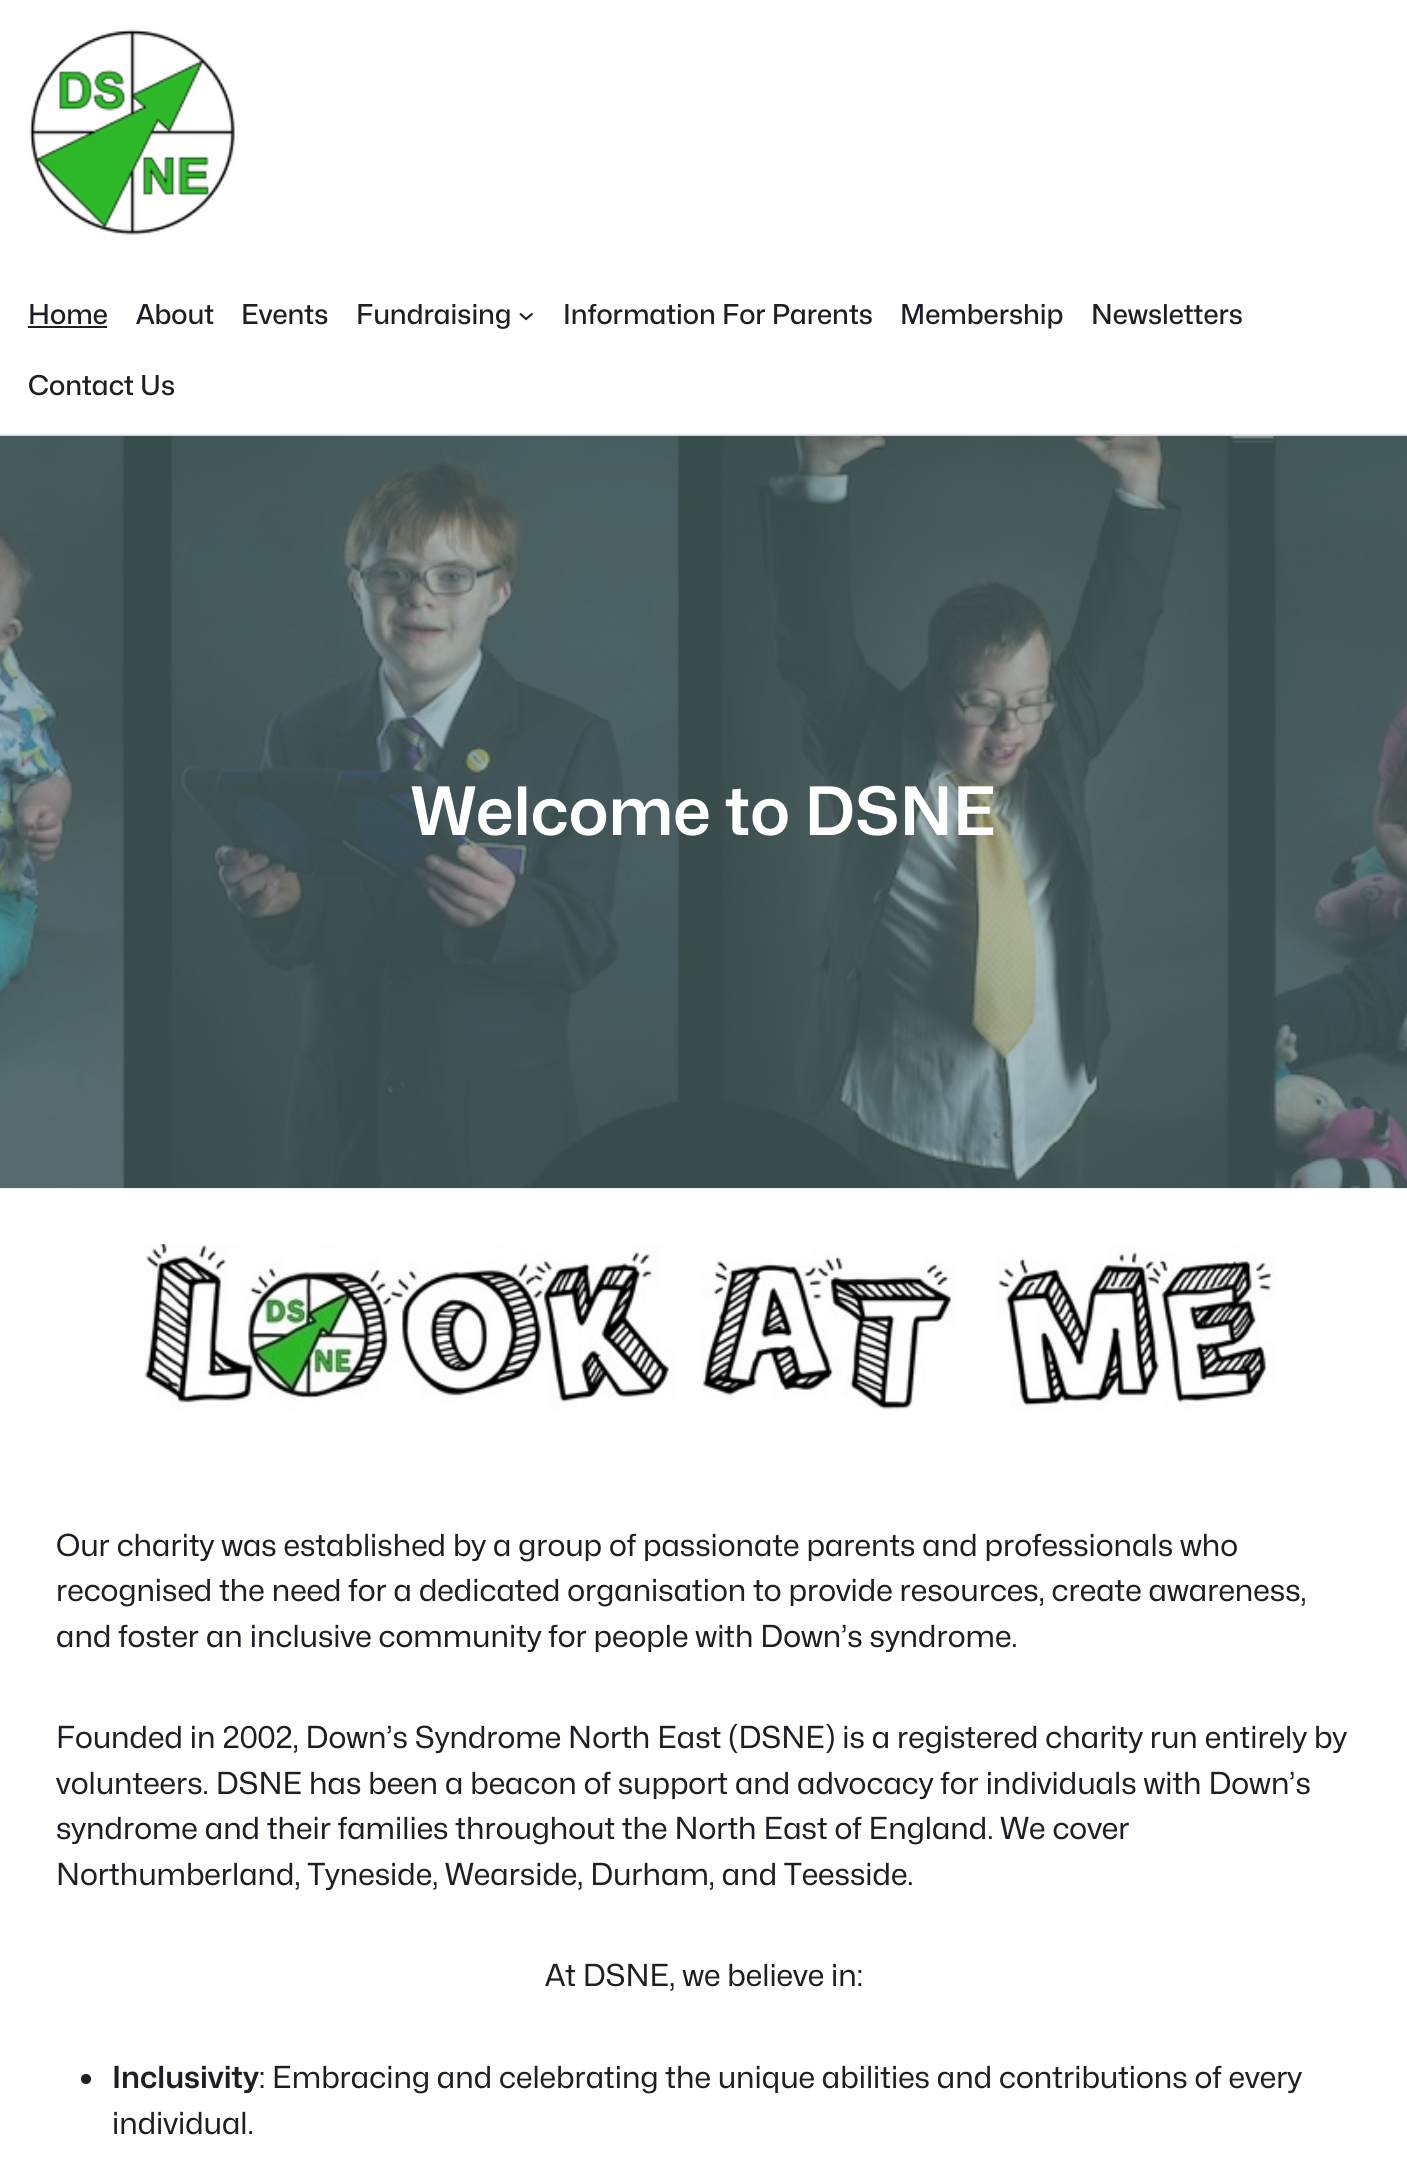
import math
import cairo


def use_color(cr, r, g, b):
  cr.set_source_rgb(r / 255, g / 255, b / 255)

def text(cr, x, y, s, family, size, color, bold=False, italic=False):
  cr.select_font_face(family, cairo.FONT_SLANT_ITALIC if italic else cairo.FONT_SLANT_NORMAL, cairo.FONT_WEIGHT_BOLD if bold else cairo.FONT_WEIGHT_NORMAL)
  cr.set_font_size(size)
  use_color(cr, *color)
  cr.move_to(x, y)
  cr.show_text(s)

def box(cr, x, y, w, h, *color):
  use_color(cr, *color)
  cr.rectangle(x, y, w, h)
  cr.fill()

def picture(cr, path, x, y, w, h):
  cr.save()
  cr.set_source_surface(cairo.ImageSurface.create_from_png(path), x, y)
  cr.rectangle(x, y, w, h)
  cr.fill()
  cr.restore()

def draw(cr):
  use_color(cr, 255, 255, 255)
  cr.paint()
  box(cr, 0, 434, 1407, 2, 227, 227, 240)
  picture(cr, "img_01.png", 29, 29, 206, 206)
  box(cr, 28, 326, 79, 2, 30, 30, 38)
  cr.new_path()
  cr.move_to(520, 313.5)
  cr.line_to(526, 319)
  cr.line_to(532.5, 313.5)
  cr.set_line_width(2.1)
  cr.stroke()
  picture(cr, "img_02.png", 0, 435, 1407, 754)
  picture(cr, "img_03.png", 144, 1244, 1132, 166)
  cr.arc(86, 2079, 5, 0, 2 * math.pi)
  cr.fill()
  text(cr, 28, 324, "Home", "Mona Sans Medium", 27.4, (30, 30, 38))
  text(cr, 136, 324, "About", "Mona Sans Medium", 27.4, (30, 30, 38))
  text(cr, 241, 324, "Events", "Mona Sans Medium", 27.4, (30, 30, 38))
  text(cr, 356, 324, "Fundraising", "Mona Sans Medium", 27.4, (30, 30, 38))
  text(cr, 563, 324, "Information For Parents", "Mona Sans Medium", 27.4, (30, 30, 38))
  text(cr, 900, 324, "Membership", "Mona Sans Medium", 27.4, (30, 30, 38))
  text(cr, 1091, 324, "Newsletters", "Mona Sans Medium", 27.4, (30, 30, 38))
  text(cr, 28, 395, "Contact Us", "Mona Sans Medium", 27.4, (30, 30, 38))
  text(cr, 411, 835, "Welcome to DSNE", "Mona Sans SemiBold", 66.75, (255, 255, 255))
  text(cr, 56, 1556, "Our charity was established by a group of passionate parents and professionals who", "Mona Sans", 30.4, (30, 30, 38))
  text(cr, 56, 1601, "recognised the need for a dedicated organisation to provide resources, create awareness,", "Mona Sans", 30.4, (30, 30, 38))
  text(cr, 56, 1647, "and foster an inclusive community for people with Down’s syndrome.", "Mona Sans", 30.4, (30, 30, 38))
  text(cr, 56, 1748, "Founded in 2002, Down’s Syndrome North East (DSNE) is a registered charity run entirely by", "Mona Sans", 30.4, (30, 30, 38))
  text(cr, 56, 1794, "volunteers. DSNE has been a beacon of support and advocacy for individuals with Down’s", "Mona Sans", 30.4, (30, 30, 38))
  text(cr, 56, 1839, "syndrome and their families throughout the North East of England. We cover", "Mona Sans", 30.4, (30, 30, 38))
  text(cr, 56, 1885, "Northumberland, Tyneside, Wearside, Durham, and Teesside.", "Mona Sans", 30.4, (30, 30, 38))
  text(cr, 545, 1986, "At DSNE, we believe in:", "Mona Sans", 30.4, (30, 30, 38))
  text(cr, 112, 2088, "Inclusivity", "Mona Sans SemiBold", 30.4, (30, 30, 38))
  text(cr, 259, 2088, ": Embracing and celebrating the unique abilities and contributions of every", "Mona Sans", 30.4, (30, 30, 38))
  text(cr, 112, 2134, "individual.", "Mona Sans", 30.4, (30, 30, 38))


surface = cairo.ImageSurface(cairo.FORMAT_RGB24, 1407, 2162)
cr = cairo.Context(surface)
options = cairo.FontOptions()
options.set_hint_metrics(cairo.HINT_METRICS_OFF)
options.set_hint_style(cairo.HINT_STYLE_NONE)
cr.set_font_options(options)
cr.set_miter_limit(4)
draw(cr)
surface.write_to_png("out.png")
